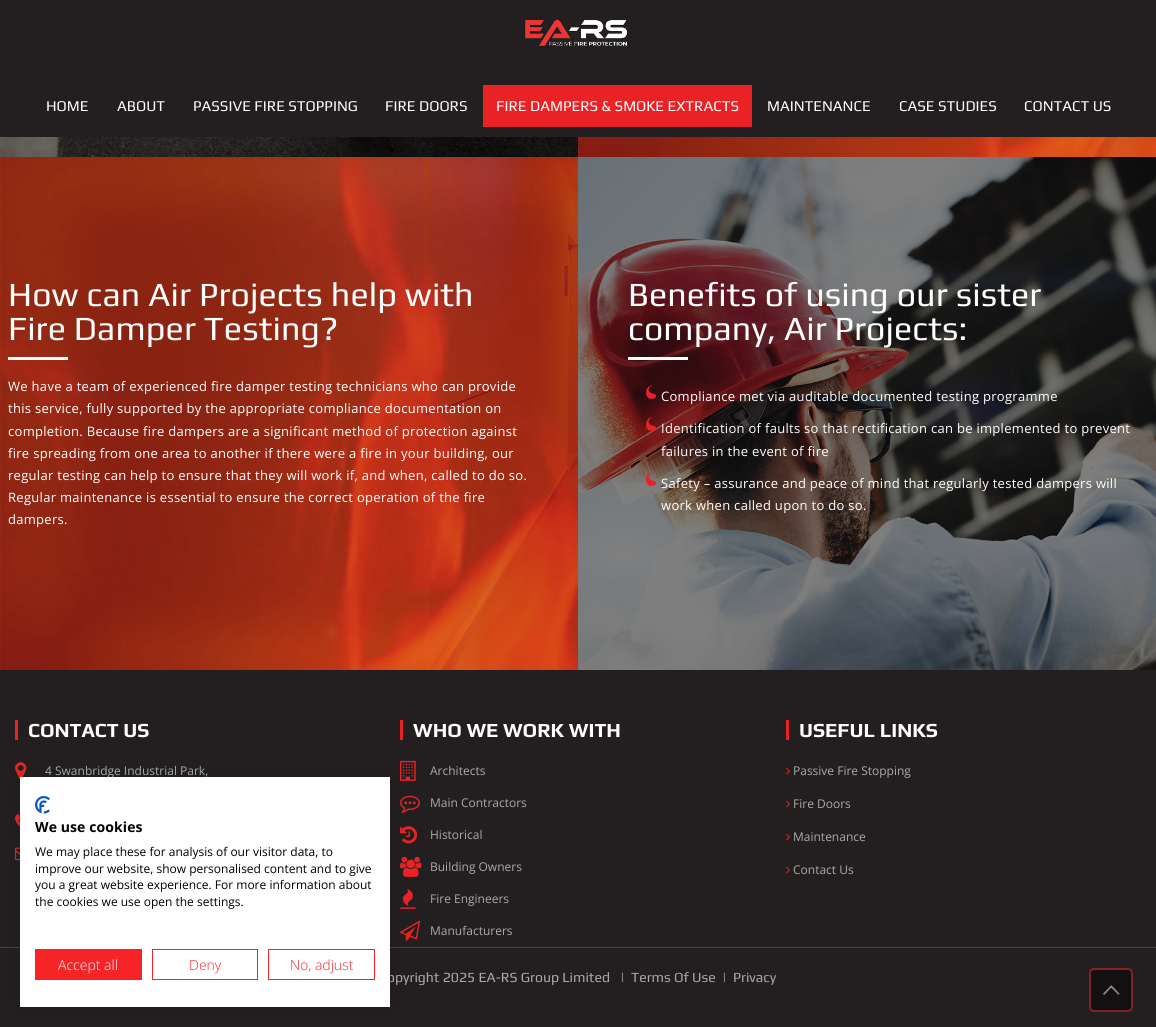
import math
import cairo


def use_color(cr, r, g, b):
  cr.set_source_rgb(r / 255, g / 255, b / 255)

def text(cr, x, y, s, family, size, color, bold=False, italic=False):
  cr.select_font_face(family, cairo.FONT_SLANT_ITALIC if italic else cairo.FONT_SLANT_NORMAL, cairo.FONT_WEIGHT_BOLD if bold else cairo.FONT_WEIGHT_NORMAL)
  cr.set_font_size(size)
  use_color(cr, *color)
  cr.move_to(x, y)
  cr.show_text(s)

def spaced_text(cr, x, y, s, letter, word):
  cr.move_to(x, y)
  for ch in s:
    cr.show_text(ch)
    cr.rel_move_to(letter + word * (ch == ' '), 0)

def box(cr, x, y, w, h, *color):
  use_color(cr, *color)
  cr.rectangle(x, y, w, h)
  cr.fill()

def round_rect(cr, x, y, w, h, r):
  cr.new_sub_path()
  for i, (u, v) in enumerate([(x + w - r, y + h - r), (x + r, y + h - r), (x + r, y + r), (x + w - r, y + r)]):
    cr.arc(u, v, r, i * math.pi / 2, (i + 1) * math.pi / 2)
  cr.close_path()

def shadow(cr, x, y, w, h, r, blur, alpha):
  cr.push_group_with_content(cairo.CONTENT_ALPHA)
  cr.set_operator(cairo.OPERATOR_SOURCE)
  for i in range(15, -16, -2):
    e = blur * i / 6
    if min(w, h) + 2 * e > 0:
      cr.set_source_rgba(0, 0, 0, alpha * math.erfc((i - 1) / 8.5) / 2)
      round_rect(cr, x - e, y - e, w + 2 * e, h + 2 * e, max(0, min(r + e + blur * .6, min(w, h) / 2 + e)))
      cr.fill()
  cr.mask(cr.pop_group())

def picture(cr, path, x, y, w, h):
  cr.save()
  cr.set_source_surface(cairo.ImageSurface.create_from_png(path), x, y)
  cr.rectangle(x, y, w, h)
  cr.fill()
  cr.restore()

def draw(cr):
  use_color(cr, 255, 255, 255)
  cr.paint()
  box(cr, 0, 0, 1156, 137, 35, 31, 32)
  picture(cr, "img_01.png", 524, 19, 104, 28)
  box(cr, 483, 85, 269, 42, 233, 34, 37)
  picture(cr, "img_02.png", 0, 137, 578, 20)
  picture(cr, "img_03.png", 578, 137, 578, 20)
  picture(cr, "img_04.png", 0, 157, 578, 513)
  box(cr, 8, 357, 60, 3, 255, 255, 255)
  picture(cr, "img_05.png", 578, 157, 578, 513)
  box(cr, 628, 357, 60, 3, 255, 255, 255)
  picture(cr, "img_06.png", 646, 385, 10, 15)
  picture(cr, "img_07.png", 646, 417, 10, 15)
  picture(cr, "img_08.png", 646, 472, 10, 15)
  box(cr, 0, 670, 1156, 357, 35, 31, 32)
  box(cr, 15, 720, 3, 20, 233, 34, 37)
  picture(cr, "img_09.png", 15, 762, 12, 18)
  picture(cr, "img_10.png", 15, 814, 5, 13)
  picture(cr, "img_11.png", 15, 847, 5, 14)
  box(cr, 400, 720, 3, 20, 233, 34, 37)
  picture(cr, "img_12.png", 400, 760, 16, 21)
  picture(cr, "img_13.png", 400, 795, 20, 18)
  picture(cr, "img_14.png", 400, 826, 18, 18)
  picture(cr, "img_15.png", 400, 856, 22, 21)
  picture(cr, "img_16.png", 400, 889, 16, 20)
  picture(cr, "img_17.png", 400, 920, 20, 21)
  box(cr, 786, 720, 3, 20, 233, 34, 37)
  picture(cr, "img_18.png", 786, 767, 4, 8)
  picture(cr, "img_18.png", 786, 800, 4, 8)
  picture(cr, "img_18.png", 786, 833, 4, 8)
  picture(cr, "img_18.png", 786, 866, 4, 8)
  box(cr, 0, 947, 1156, 1, 68, 68, 68)
  use_color(cr, 18, 16, 16)
  round_rect(cr, 1090, 969, 42, 42, 4)
  cr.fill_preserve()
  use_color(cr, 134, 33, 35)
  cr.stroke()
  picture(cr, "img_19.png", 1103, 985, 17, 10)
  use_color(cr, 0, 0, 0)
  shadow(cr, 20, 777, 370, 230, 0, 12, 0.1)
  text(cr, 46, 111, "HOME", "Play", 15, (255, 255, 255))
  text(cr, 117, 111, "ABOUT", "Play", 15, (255, 255, 255))
  text(cr, 193, 111, "PASSIVE FIRE STOPPING", "Play", 15, (255, 255, 255))
  text(cr, 385, 111, "FIRE DOORS", "Play", 15, (255, 255, 255))
  text(cr, 496, 111, "FIRE DAMPERS & SMOKE EXTRACTS", "Play", 15, (255, 255, 255))
  text(cr, 767, 111, "MAINTENANCE", "Play", 15, (255, 255, 255))
  text(cr, 899, 111, "CASE STUDIES", "Play", 15, (255, 255, 255))
  text(cr, 1024, 111, "CONTACT US", "Play", 15, (255, 255, 255))
  cr.set_font_size(34)
  spaced_text(cr, 8, 306, "How can Air Projects help with", 0.1, 0)
  spaced_text(cr, 8, 340, "Fire Damper Testing?", 0.1, 0)
  cr.select_font_face("Open Sans")
  cr.set_font_size(13)
  spaced_text(cr, 8, 391, "We have a team of experienced fire damper testing technicians who can provide", 0.3, 0)
  spaced_text(cr, 8, 413, "this service, fully supported by the appropriate compliance documentation on", 0.3, 0)
  spaced_text(cr, 8, 436, "completion. Because fire dampers are a significant method of protection against", 0.3, 0)
  spaced_text(cr, 8, 458, "fire spreading from one area to another if there were a fire in your building, our", 0.3, 0)
  spaced_text(cr, 8, 480, "regular testing can help to ensure that they will work if, and when, called to do so.", 0.3, 0)
  spaced_text(cr, 8, 502, "Regular maintenance is essential to ensure the correct operation of the fire", 0.3, 0)
  spaced_text(cr, 8, 524, "dampers.", 0.3, 0)
  cr.select_font_face("Play")
  cr.set_font_size(34)
  spaced_text(cr, 628, 306, "Benefits of using our sister", 0.1, 0)
  spaced_text(cr, 628, 340, "company, Air Projects:", 0.1, 0)
  cr.select_font_face("Open Sans")
  cr.set_font_size(13)
  spaced_text(cr, 661, 401, "Compliance met via auditable documented testing programme", 0.3, 0)
  spaced_text(cr, 661, 433, "Identification of faults so that rectification can be implemented to prevent", 0.3, 0)
  spaced_text(cr, 661, 456, "failures in the event of fire", 0.3, 0)
  spaced_text(cr, 661, 488, "Safety – assurance and peace of mind that regularly tested dampers will", 0.3, 0)
  spaced_text(cr, 661, 510, "work when called upon to do so.", 0.3, 0)
  text(cr, 28, 737, "CONTACT US", "Play", 20, (255, 255, 255), bold=True)
  text(cr, 45, 775, "4 Swanbridge Industrial Park,", "Open Sans", 12, (170, 170, 170))
  text(cr, 413, 737, "WHO WE WORK WITH", "Play", 20, (255, 255, 255), bold=True)
  text(cr, 430, 775, "Architects", "Open Sans", 12, (170, 170, 170))
  text(cr, 430, 807, "Main Contractors", "Open Sans", 12, (170, 170, 170))
  text(cr, 430, 839, "Historical", "Open Sans", 12, (170, 170, 170))
  text(cr, 430, 871, "Building Owners", "Open Sans", 12, (170, 170, 170))
  text(cr, 430, 903, "Fire Engineers", "Open Sans", 12, (170, 170, 170))
  text(cr, 430, 935, "Manufacturers", "Open Sans", 12, (170, 170, 170))
  text(cr, 799, 737, "USEFUL LINKS", "Play", 20, (255, 255, 255), bold=True)
  text(cr, 793, 775, "Passive Fire Stopping", "Open Sans", 12, (170, 170, 170))
  text(cr, 793, 808, "Fire Doors", "Open Sans", 12, (170, 170, 170))
  text(cr, 793, 841, "Maintenance", "Open Sans", 12, (170, 170, 170))
  text(cr, 793, 874, "Contact Us", "Open Sans", 12, (170, 170, 170))
  text(cr, 387, 982, "opyright 2025 EA-RS Group Limited", "Play", 14, (170, 170, 170))
  text(cr, 620, 982, "|", "Play", 14, (170, 170, 170))
  text(cr, 631, 982, "Terms Of Use", "Play", 14, (170, 170, 170))
  text(cr, 722, 982, "|", "Play", 14, (170, 170, 170))
  text(cr, 733, 982, "Privacy", "Play", 14, (170, 170, 170))
  box(cr, 20, 777, 370, 230, 255, 255, 255)
  picture(cr, "img_20.png", 35, 796, 15, 18)
  cr.select_font_face("Open Sans", cairo.FONT_SLANT_NORMAL, cairo.FONT_WEIGHT_BOLD)
  use_color(cr, 0, 0, 0)
  spaced_text(cr, 35, 832, "We use cookies", 0.1, 0)
  text(cr, 35, 856, "We may place these for analysis of our visitor data, to", "Open Sans", 12, (0, 0, 0))
  text(cr, 35, 873, "improve our website, show personalised content and to give", "Open Sans", 12, (0, 0, 0))
  text(cr, 35, 889, "you a great website experience. For more information about", "Open Sans", 12, (0, 0, 0))
  text(cr, 35, 906, "the cookies we use open the settings.", "Open Sans", 12, (0, 0, 0))
  box(cr, 35, 949, 107, 31, 247, 36, 39)
  text(cr, 58, 970, "Accept all", "Open Sans Light", 14, (255, 255, 255))
  cr.rectangle(152.5, 949.5, 105, 30)
  use_color(cr, 247, 36, 39)
  cr.set_line_width(1)
  cr.stroke()
  text(cr, 189, 970, "Deny", "Open Sans Light", 14, (247, 36, 39))
  cr.rectangle(268.5, 949.5, 106, 30)
  cr.stroke()
  text(cr, 290, 970, "No, adjust", "Open Sans Light", 14, (247, 36, 39))


surface = cairo.ImageSurface(cairo.FORMAT_RGB24, 1156, 1027)
cr = cairo.Context(surface)
options = cairo.FontOptions()
options.set_hint_metrics(cairo.HINT_METRICS_OFF)
options.set_hint_style(cairo.HINT_STYLE_NONE)
cr.set_font_options(options)
cr.set_miter_limit(4)
draw(cr)
surface.write_to_png("out.png")
